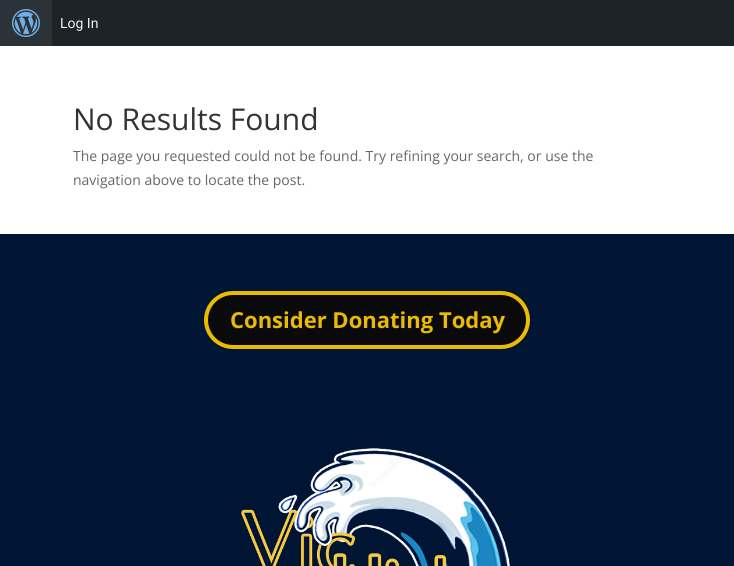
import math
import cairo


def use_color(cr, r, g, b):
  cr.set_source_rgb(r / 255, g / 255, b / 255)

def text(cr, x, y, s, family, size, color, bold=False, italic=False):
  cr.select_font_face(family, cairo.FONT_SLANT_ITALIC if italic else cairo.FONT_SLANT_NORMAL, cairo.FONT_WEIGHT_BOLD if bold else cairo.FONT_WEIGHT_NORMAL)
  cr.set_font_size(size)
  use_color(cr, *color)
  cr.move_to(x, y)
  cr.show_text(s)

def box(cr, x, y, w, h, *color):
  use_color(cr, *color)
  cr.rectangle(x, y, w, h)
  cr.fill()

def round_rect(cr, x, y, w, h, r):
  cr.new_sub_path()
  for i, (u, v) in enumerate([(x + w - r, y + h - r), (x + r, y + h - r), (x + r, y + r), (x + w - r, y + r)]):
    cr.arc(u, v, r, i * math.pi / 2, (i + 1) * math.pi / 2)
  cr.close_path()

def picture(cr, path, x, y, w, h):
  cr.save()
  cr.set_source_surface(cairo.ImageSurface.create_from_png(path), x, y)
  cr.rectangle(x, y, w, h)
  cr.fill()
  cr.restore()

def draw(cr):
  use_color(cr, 255, 255, 255)
  cr.paint()
  box(cr, 52, 0, 682, 46, 29, 35, 39)
  box(cr, 0, 0, 52, 46, 44, 51, 56)
  picture(cr, "img_01.png", 12, 9, 28, 28)
  box(cr, 0, 234, 734, 332, 0, 20, 51)
  use_color(cr, 10, 10, 10)
  round_rect(cr, 206, 293, 322, 54, 27)
  cr.fill_preserve()
  use_color(cr, 234, 187, 0)
  cr.set_line_width(4)
  cr.stroke()
  picture(cr, "img_02.png", 241, 448, 269, 118)
  text(cr, 60, 28, "Log In", "Roboto", 14, (240, 240, 241))
  text(cr, 73, 130, "No Results Found", "Open Sans", 30, (51, 51, 51))
  text(cr, 73, 161, "The page you requested could not be found. Try refining your search, or use the", "Open Sans", 14, (102, 102, 102))
  text(cr, 73, 185, "navigation above to locate the post.", "Open Sans", 14, (102, 102, 102))
  text(cr, 230, 328, "Consider Donating Today", "Open Sans", 22, (234, 187, 0), bold=True)


surface = cairo.ImageSurface(cairo.FORMAT_RGB24, 734, 566)
cr = cairo.Context(surface)
options = cairo.FontOptions()
options.set_hint_metrics(cairo.HINT_METRICS_OFF)
options.set_hint_style(cairo.HINT_STYLE_NONE)
cr.set_font_options(options)
cr.set_miter_limit(4)
draw(cr)
surface.write_to_png("out.png")
